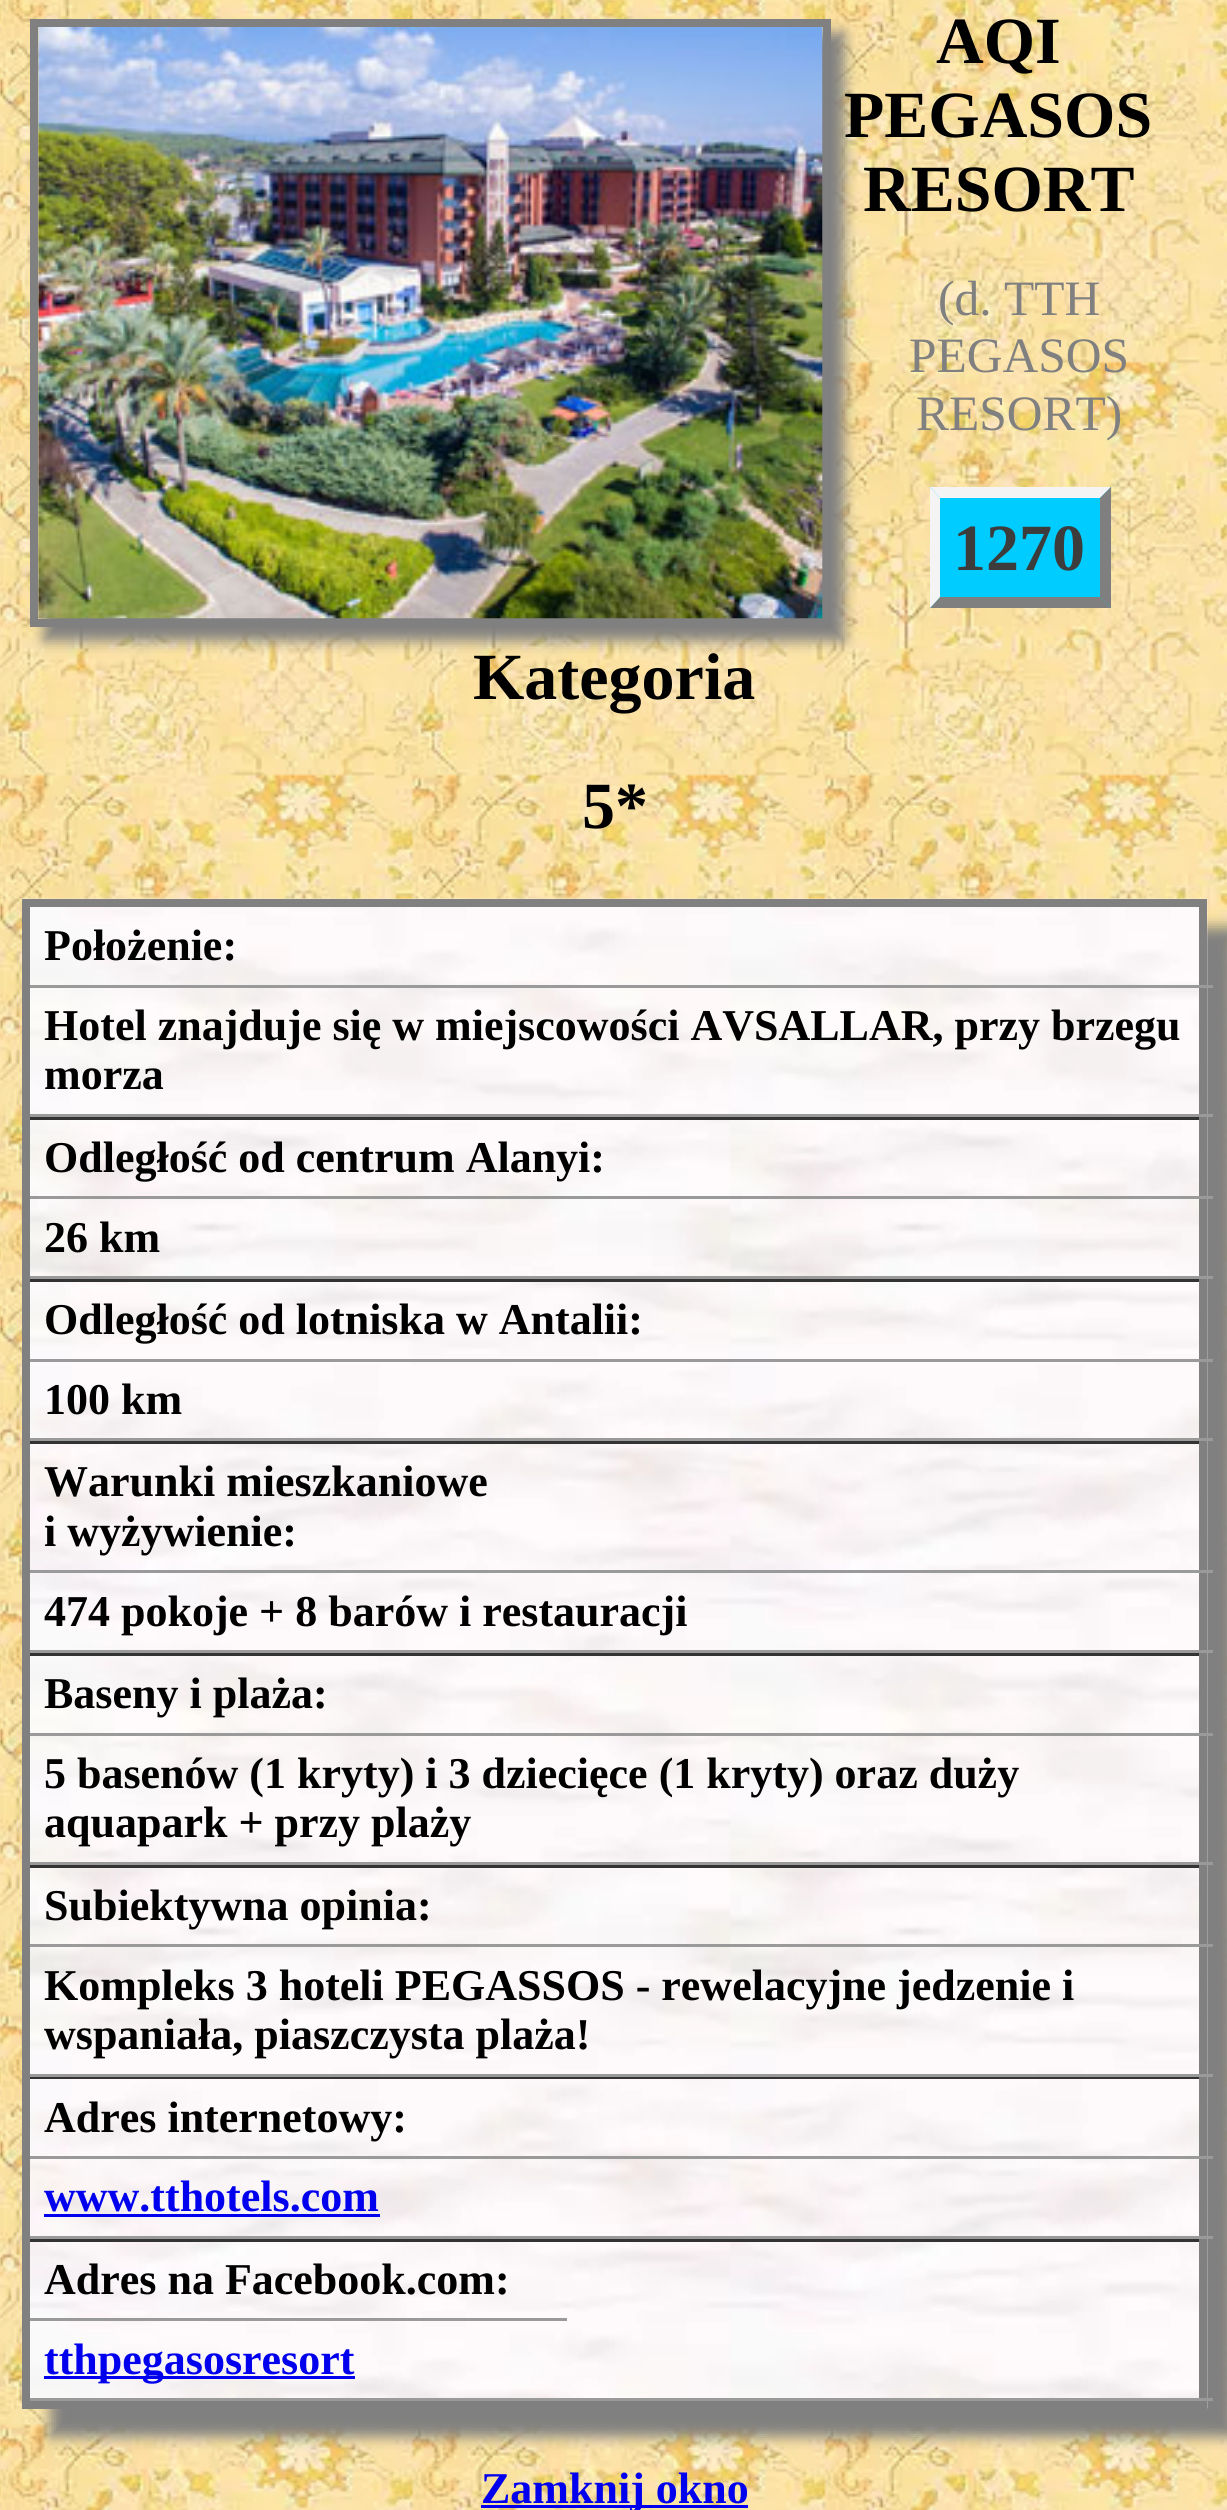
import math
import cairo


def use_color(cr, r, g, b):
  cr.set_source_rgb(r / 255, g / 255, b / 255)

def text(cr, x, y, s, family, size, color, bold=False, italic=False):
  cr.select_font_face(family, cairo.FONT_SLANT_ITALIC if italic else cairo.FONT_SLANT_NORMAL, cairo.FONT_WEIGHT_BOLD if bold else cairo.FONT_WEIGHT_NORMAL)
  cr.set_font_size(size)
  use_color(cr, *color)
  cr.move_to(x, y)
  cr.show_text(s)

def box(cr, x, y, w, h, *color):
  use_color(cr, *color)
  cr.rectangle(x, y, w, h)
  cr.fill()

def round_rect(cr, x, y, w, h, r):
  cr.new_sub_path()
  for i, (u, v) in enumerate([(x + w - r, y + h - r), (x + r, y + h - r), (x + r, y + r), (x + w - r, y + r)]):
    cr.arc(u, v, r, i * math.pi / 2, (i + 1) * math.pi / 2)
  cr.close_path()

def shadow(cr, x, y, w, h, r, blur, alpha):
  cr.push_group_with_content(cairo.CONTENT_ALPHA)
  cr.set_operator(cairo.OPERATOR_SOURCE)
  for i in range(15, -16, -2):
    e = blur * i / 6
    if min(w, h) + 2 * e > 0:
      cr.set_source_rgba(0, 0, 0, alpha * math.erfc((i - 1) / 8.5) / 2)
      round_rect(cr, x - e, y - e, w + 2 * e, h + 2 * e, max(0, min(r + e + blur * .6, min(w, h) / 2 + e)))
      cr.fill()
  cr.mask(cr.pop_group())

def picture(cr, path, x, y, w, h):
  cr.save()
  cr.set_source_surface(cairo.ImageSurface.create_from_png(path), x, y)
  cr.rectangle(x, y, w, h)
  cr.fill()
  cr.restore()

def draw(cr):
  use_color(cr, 255, 255, 255)
  cr.paint()
  picture(cr, "img_01.png", 0, 0, 1227, 2510)
  use_color(cr, 128, 128, 128)
  shadow(cr, 44, 33, 800, 608, 0, 7, 1)
  cr.rectangle(34, 23, 793, 600)
  use_color(cr, 128, 128, 128)
  cr.set_line_width(8)
  cr.stroke()
  picture(cr, "img_02.png", 38, 27, 785, 592)
  box(cr, 930, 487, 181, 121, 0, 204, 255)
  use_color(cr, 244, 244, 244)
  cr.new_path()
  cr.move_to(930, 487)
  cr.line_to(1111, 487)
  cr.line_to(1100, 498)
  cr.line_to(940, 498)
  cr.close_path()
  cr.fill()
  use_color(cr, 127, 127, 127)
  cr.new_path()
  cr.move_to(1111, 487)
  cr.line_to(1111, 608)
  cr.line_to(1100, 597)
  cr.line_to(1100, 498)
  cr.close_path()
  cr.fill()
  cr.new_path()
  cr.move_to(1111, 608)
  cr.line_to(930, 608)
  cr.line_to(940, 597)
  cr.line_to(1100, 597)
  cr.close_path()
  cr.fill()
  use_color(cr, 244, 244, 244)
  cr.new_path()
  cr.move_to(930, 608)
  cr.line_to(930, 487)
  cr.line_to(940, 498)
  cr.line_to(940, 597)
  cr.close_path()
  cr.fill()
  use_color(cr, 128, 128, 128)
  shadow(cr, 50, 927, 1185, 1510, 0, 7, 1)
  picture(cr, "img_03.png", 22, 898, 1186, 1511)
  box(cr, 22, 899, 1185, 8, 128, 128, 128)
  box(cr, 25, 1117, 1180, 3, 51, 51, 51)
  box(cr, 25, 1279, 1180, 3, 51, 51, 51)
  box(cr, 25, 1441, 1180, 3, 51, 51, 51)
  box(cr, 25, 1653, 1180, 3, 51, 51, 51)
  box(cr, 25, 1865, 1180, 3, 51, 51, 51)
  box(cr, 25, 2077, 1180, 2, 51, 51, 51)
  box(cr, 25, 2239, 1180, 3, 51, 51, 51)
  box(cr, 1199, 899, 8, 1499, 128, 128, 128)
  box(cr, 22, 2401, 1185, 8, 128, 128, 128)
  box(cr, 22, 899, 8, 1510, 128, 128, 128)
  box(cr, 30, 985, 1183, 3, 154, 154, 154)
  box(cr, 30, 1114, 1183, 3, 154, 154, 154)
  box(cr, 30, 1196, 1183, 3, 154, 154, 154)
  box(cr, 30, 1276, 1183, 3, 154, 154, 154)
  box(cr, 30, 1359, 1183, 3, 154, 154, 154)
  box(cr, 30, 1438, 1183, 3, 154, 154, 154)
  box(cr, 30, 1570, 1183, 3, 154, 154, 154)
  box(cr, 30, 1650, 1183, 3, 154, 154, 154)
  box(cr, 30, 1733, 1183, 3, 154, 154, 154)
  box(cr, 30, 1862, 1183, 3, 154, 154, 154)
  box(cr, 30, 1944, 1183, 3, 154, 154, 154)
  box(cr, 30, 2074, 1183, 3, 154, 154, 154)
  box(cr, 30, 2156, 1183, 3, 154, 154, 154)
  box(cr, 30, 2236, 1183, 3, 154, 154, 154)
  box(cr, 44, 2214, 336, 3, 0, 0, 238)
  box(cr, 30, 2318, 537, 3, 154, 154, 154)
  box(cr, 30, 2398, 1183, 3, 154, 154, 154)
  box(cr, 44, 2376, 311, 3, 0, 0, 238)
  box(cr, 481, 2505, 267, 3, 0, 0, 238)
  text(cr, 936, 63, "AQI", "Liberation Serif", 66, (0, 0, 0), bold=True)
  text(cr, 844, 137, "PEGASOS", "Liberation Serif", 66, (0, 0, 0), bold=True)
  text(cr, 863, 211, "RESORT", "Liberation Serif", 66, (0, 0, 0), bold=True)
  text(cr, 938, 315, "(d. TTH", "Liberation Serif", 49.5, (128, 128, 128))
  text(cr, 909, 372, "PEGASOS", "Liberation Serif", 49.5, (128, 128, 128))
  text(cr, 916, 430, "RESORT)", "Liberation Serif", 49.5, (128, 128, 128))
  text(cr, 953, 570, "1270", "Liberation Serif", 66, (60, 60, 60), bold=True)
  text(cr, 473, 699, "Kategoria", "Liberation Serif", 66, (0, 0, 0), bold=True)
  text(cr, 582, 828, "5*", "Liberation Serif", 66, (0, 0, 0), bold=True)
  text(cr, 44, 960, "Położenie:", "Liberation Serif", 44, (0, 0, 0), bold=True)
  text(cr, 44, 1040, "Hotel znajduje się w miejscowości AVSALLAR, przy brzegu", "Liberation Serif", 44, (0, 0, 0), bold=True)
  text(cr, 44, 1089, "morza", "Liberation Serif", 44, (0, 0, 0), bold=True)
  text(cr, 44, 1172, "Odległość od centrum Alanyi:", "Liberation Serif", 44, (0, 0, 0), bold=True)
  text(cr, 44, 1252, "26 km", "Liberation Serif", 44, (0, 0, 0), bold=True)
  text(cr, 44, 1334, "Odległość od lotniska w Antalii:", "Liberation Serif", 44, (0, 0, 0), bold=True)
  text(cr, 44, 1414, "100 km", "Liberation Serif", 44, (0, 0, 0), bold=True)
  text(cr, 44, 1496, "Warunki mieszkaniowe", "Liberation Serif", 44, (0, 0, 0), bold=True)
  text(cr, 44, 1546, "i wyżywienie:", "Liberation Serif", 44, (0, 0, 0), bold=True)
  text(cr, 44, 1626, "474 pokoje + 8 barów i restauracji", "Liberation Serif", 44, (0, 0, 0), bold=True)
  text(cr, 44, 1708, "Baseny i plaża:", "Liberation Serif", 44, (0, 0, 0), bold=True)
  text(cr, 44, 1788, "5 basenów (1 kryty) i 3 dziecięce (1 kryty) oraz duży", "Liberation Serif", 44, (0, 0, 0), bold=True)
  text(cr, 44, 1837, "aquapark + przy plaży", "Liberation Serif", 44, (0, 0, 0), bold=True)
  text(cr, 44, 1920, "Subiektywna opinia:", "Liberation Serif", 44, (0, 0, 0), bold=True)
  text(cr, 44, 2000, "Kompleks 3 hoteli PEGASSOS - rewelacyjne jedzenie i", "Liberation Serif", 44, (0, 0, 0), bold=True)
  text(cr, 44, 2049, "wspaniała, piaszczysta plaża!", "Liberation Serif", 44, (0, 0, 0), bold=True)
  text(cr, 44, 2132, "Adres internetowy:", "Liberation Serif", 44, (0, 0, 0), bold=True)
  text(cr, 44, 2211, "www.tthotels.com", "Liberation Serif", 44, (0, 0, 238), bold=True)
  text(cr, 44, 2294, "Adres na Facebook.com:", "Liberation Serif", 44, (0, 0, 0), bold=True)
  text(cr, 44, 2374, "tthpegasosresort", "Liberation Serif", 44, (0, 0, 238), bold=True)
  text(cr, 481, 2503, "Zamknij okno", "Liberation Serif", 44, (0, 0, 238), bold=True)


surface = cairo.ImageSurface(cairo.FORMAT_RGB24, 1227, 2510)
cr = cairo.Context(surface)
options = cairo.FontOptions()
options.set_hint_metrics(cairo.HINT_METRICS_OFF)
options.set_hint_style(cairo.HINT_STYLE_NONE)
cr.set_font_options(options)
cr.set_miter_limit(4)
draw(cr)
surface.write_to_png("out.png")
